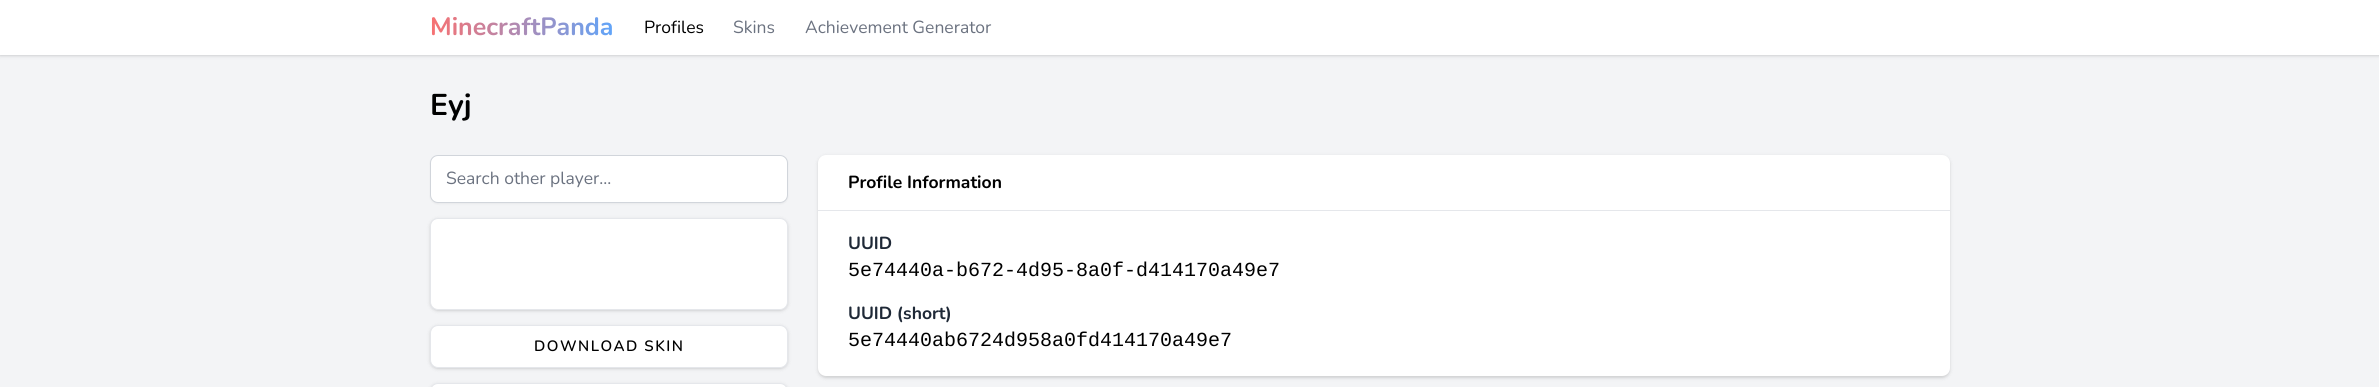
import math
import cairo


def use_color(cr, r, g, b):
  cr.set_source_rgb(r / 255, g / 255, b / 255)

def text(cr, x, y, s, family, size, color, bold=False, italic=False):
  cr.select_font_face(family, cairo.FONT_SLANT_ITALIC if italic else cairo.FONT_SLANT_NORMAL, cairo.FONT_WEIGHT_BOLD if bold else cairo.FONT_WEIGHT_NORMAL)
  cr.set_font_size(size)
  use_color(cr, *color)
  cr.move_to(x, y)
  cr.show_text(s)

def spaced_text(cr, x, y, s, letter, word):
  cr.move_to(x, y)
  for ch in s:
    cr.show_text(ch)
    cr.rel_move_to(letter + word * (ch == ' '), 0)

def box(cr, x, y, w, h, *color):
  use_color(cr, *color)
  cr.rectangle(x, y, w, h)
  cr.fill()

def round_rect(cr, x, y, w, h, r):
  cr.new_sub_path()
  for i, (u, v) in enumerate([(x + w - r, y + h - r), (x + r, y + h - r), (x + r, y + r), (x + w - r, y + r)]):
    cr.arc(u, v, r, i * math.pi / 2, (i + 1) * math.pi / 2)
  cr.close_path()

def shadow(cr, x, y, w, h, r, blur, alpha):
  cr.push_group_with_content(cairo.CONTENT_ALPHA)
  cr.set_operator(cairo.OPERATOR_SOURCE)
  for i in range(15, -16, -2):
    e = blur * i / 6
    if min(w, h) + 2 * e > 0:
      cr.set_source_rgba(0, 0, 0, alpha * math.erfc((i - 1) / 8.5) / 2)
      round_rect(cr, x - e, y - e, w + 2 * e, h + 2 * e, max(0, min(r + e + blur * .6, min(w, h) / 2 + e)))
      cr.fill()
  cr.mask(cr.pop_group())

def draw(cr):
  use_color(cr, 243, 244, 246)
  cr.paint()
  use_color(cr, 0, 0, 0)
  shadow(cr, 0, 1, 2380, 55, 0, 1, 0.06)
  shadow(cr, 0, 1, 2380, 55, 0, 2, 0.1)
  box(cr, 0, 0, 2379, 55, 255, 255, 255)
  use_color(cr, 0, 0, 0)
  shadow(cr, 430, 156, 358, 48, 8, 1, 0.05)
  use_color(cr, 255, 255, 255)
  round_rect(cr, 430.5, 155.5, 357, 47, 7.5)
  cr.fill_preserve()
  use_color(cr, 209, 213, 219)
  cr.set_line_width(1)
  cr.stroke()
  use_color(cr, 0, 0, 0)
  shadow(cr, 430, 219, 358, 92, 8, 1, 0.06)
  shadow(cr, 430, 219, 358, 92, 8, 2, 0.1)
  use_color(cr, 255, 255, 255)
  round_rect(cr, 430.5, 218.5, 357, 91, 7.5)
  cr.fill_preserve()
  use_color(cr, 229, 231, 235)
  cr.stroke()
  use_color(cr, 0, 0, 0)
  shadow(cr, 430, 326, 358, 43, 8, 1, 0.06)
  shadow(cr, 430, 326, 358, 43, 8, 2, 0.1)
  use_color(cr, 255, 255, 255)
  round_rect(cr, 430.5, 325.5, 357, 42, 7.5)
  cr.fill_preserve()
  use_color(cr, 229, 231, 235)
  cr.stroke()
  use_color(cr, 0, 0, 0)
  shadow(cr, 430, 384, 358, 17, 8, 2, 0.1)
  use_color(cr, 255, 255, 255)
  round_rect(cr, 430.5, 383.5, 357, 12, 7.5)
  cr.fill_preserve()
  use_color(cr, 229, 231, 235)
  cr.stroke()
  use_color(cr, 0, 0, 0)
  shadow(cr, 818, 156, 1132, 222, 8, 1, 0.06)
  shadow(cr, 818, 156, 1132, 222, 8, 2, 0.1)
  use_color(cr, 255, 255, 255)
  round_rect(cr, 818, 155, 1132, 221, 8)
  cr.fill()
  box(cr, 818, 210, 1132, 1, 229, 231, 235)
  cr.select_font_face("Nunito", cairo.FONT_SLANT_NORMAL, cairo.FONT_WEIGHT_BOLD)
  cr.set_font_size(25)
  gradient = cairo.LinearGradient(430, 28, 614, 27)
  gradient.add_color_stop_rgba(0, 0.973, 0.443, 0.443, 1)
  gradient.add_color_stop_rgba(1, 0.376, 0.647, 0.98, 1)
  cr.set_source(gradient)
  cr.move_to(430, 35)
  cr.show_text("MinecraftPanda")
  text(cr, 644, 33, "Profiles", "Nunito", 17.5, (0, 0, 0))
  text(cr, 733, 33, "Skins", "Nunito", 17.5, (107, 114, 128))
  text(cr, 805, 33, "Achievement Generator", "Nunito", 17.5, (107, 114, 128))
  text(cr, 430, 115, "Eyj", "Nunito", 30, (0, 0, 0), bold=True)
  text(cr, 446, 184, "Search other player...", "Nunito", 17.5, (107, 114, 128))
  cr.select_font_face("Nunito SemiBold")
  cr.set_font_size(15)
  use_color(cr, 0, 0, 0)
  spaced_text(cr, 534, 351, "DOWNLOAD SKIN", 1.5, 0)
  text(cr, 848, 188, "Profile Information", "Nunito", 17.5, (0, 0, 0), bold=True)
  text(cr, 848, 249, "UUID", "Nunito", 17.5, (31, 41, 55), bold=True)
  text(cr, 848, 276, "5e74440a-b672-4d95-8a0f-d414170a49e7", "Liberation Mono", 20, (0, 0, 0))
  text(cr, 848, 319, "UUID (short)", "Nunito", 17.5, (31, 41, 55), bold=True)
  text(cr, 848, 346, "5e74440ab6724d958a0fd414170a49e7", "Liberation Mono", 20, (0, 0, 0))


surface = cairo.ImageSurface(cairo.FORMAT_RGB24, 2379, 387)
cr = cairo.Context(surface)
options = cairo.FontOptions()
options.set_hint_metrics(cairo.HINT_METRICS_OFF)
options.set_hint_style(cairo.HINT_STYLE_NONE)
cr.set_font_options(options)
cr.set_miter_limit(4)
draw(cr)
surface.write_to_png("out.png")
